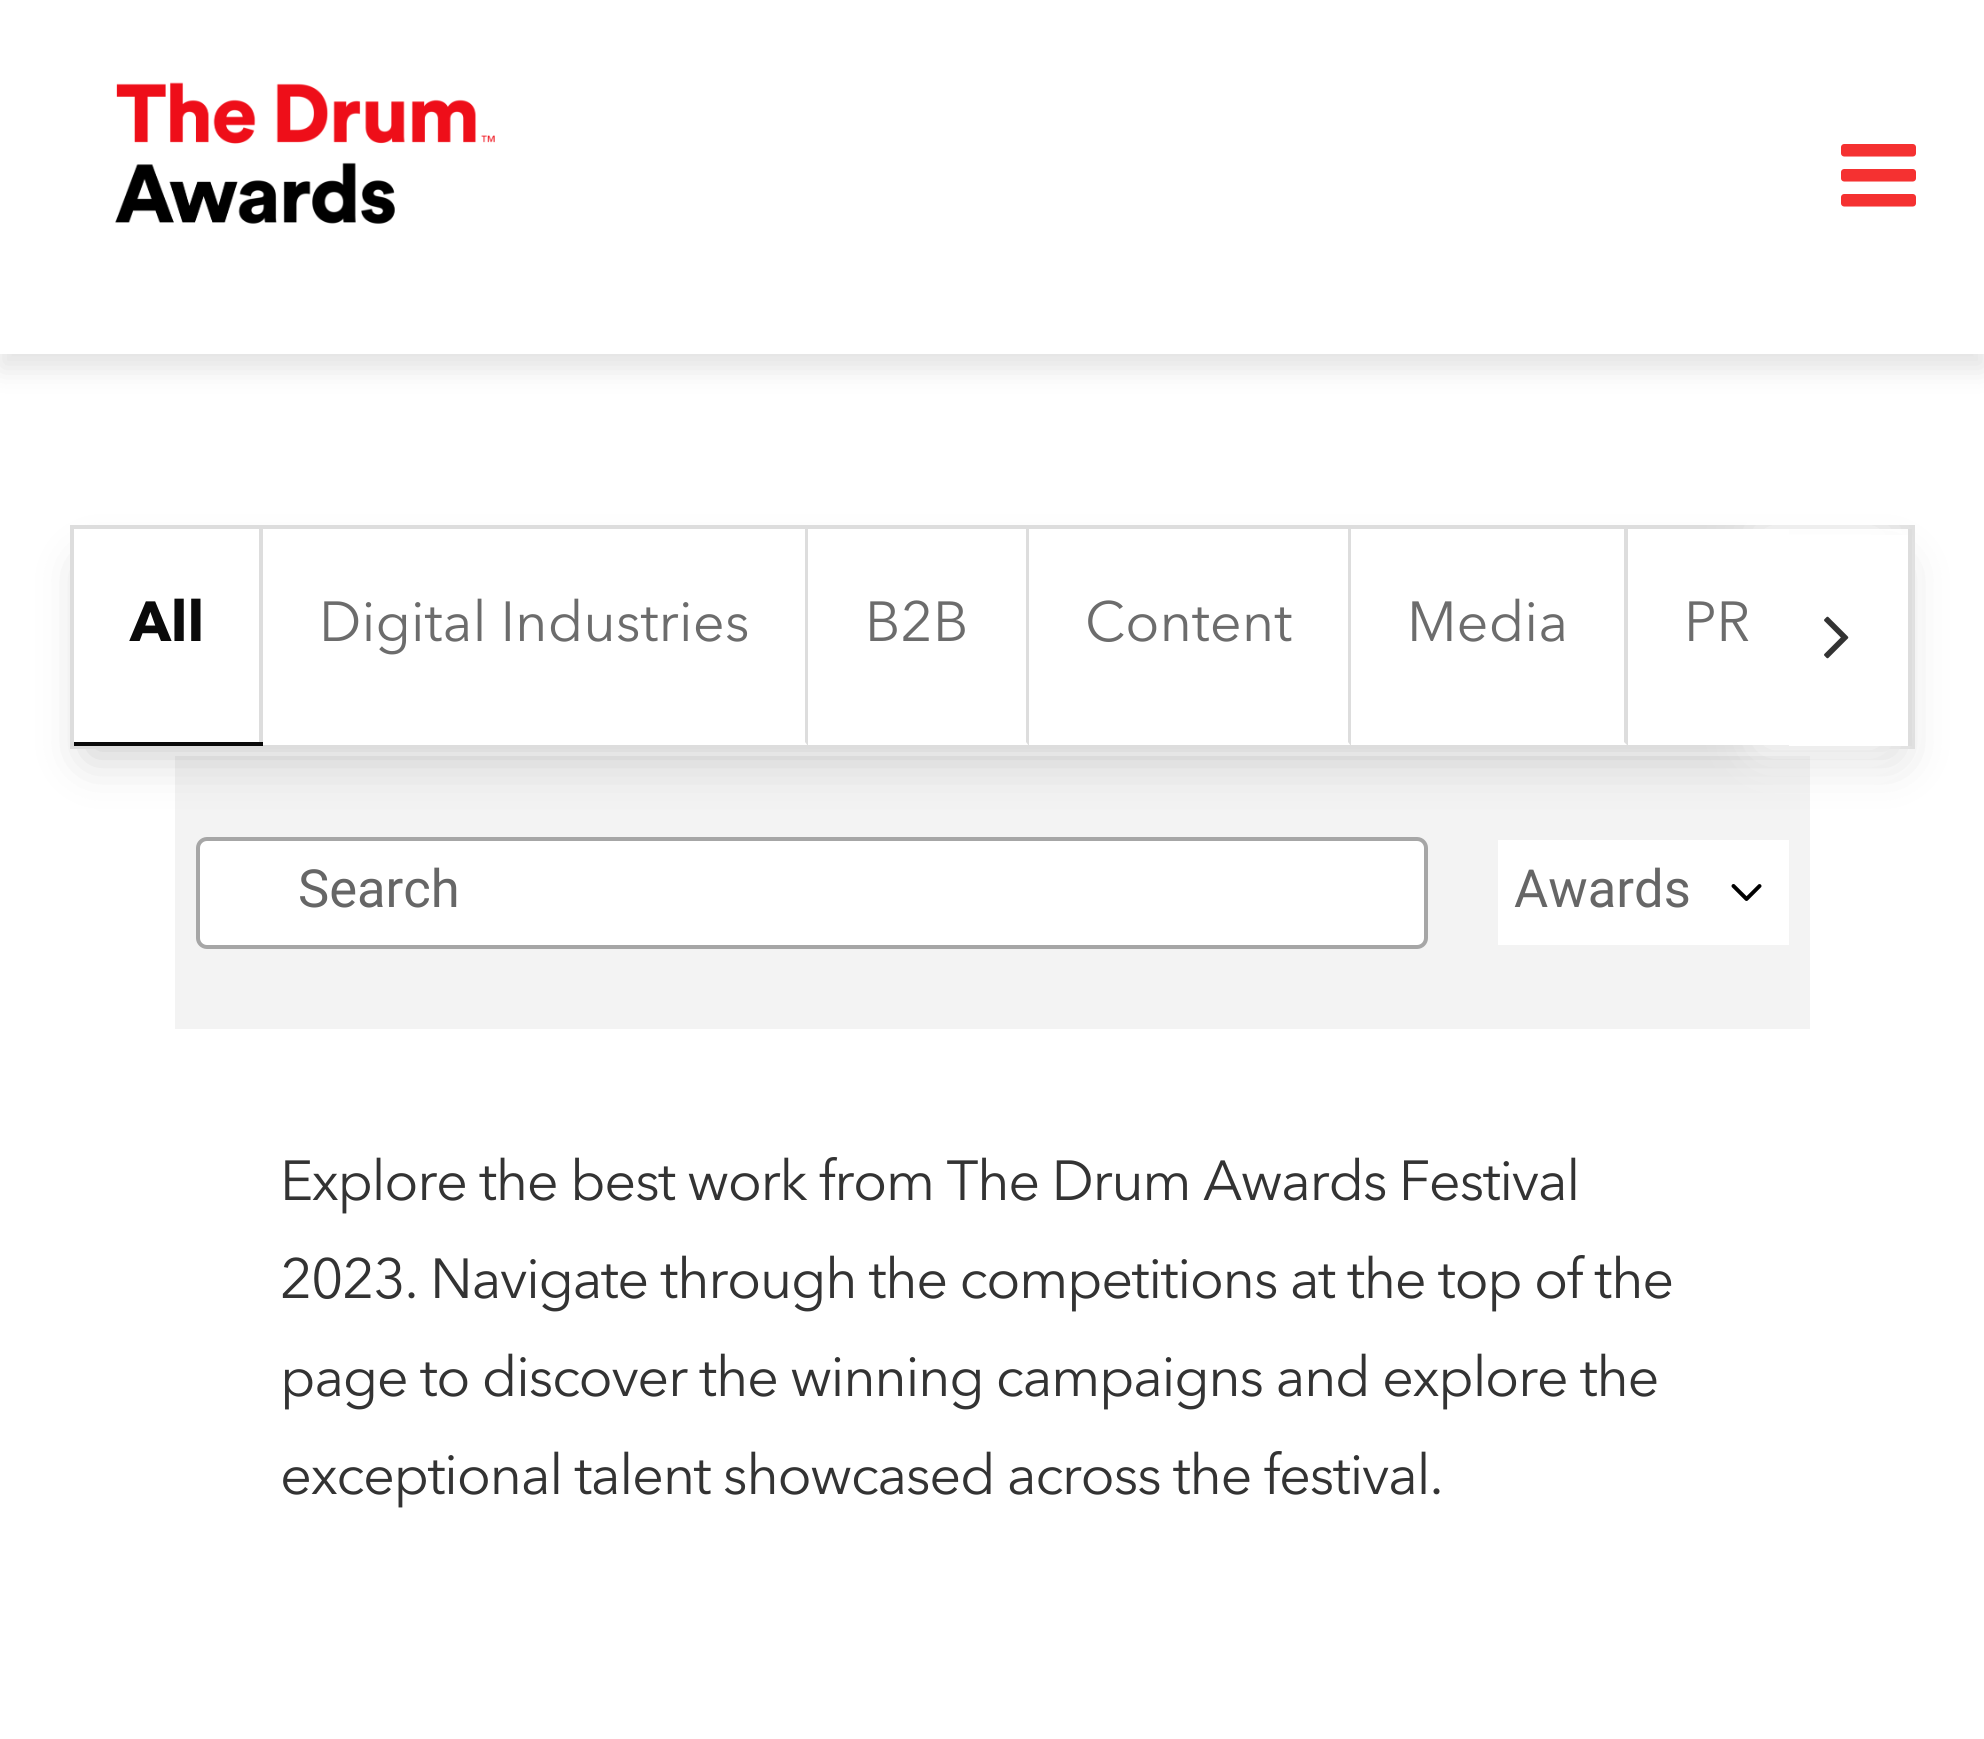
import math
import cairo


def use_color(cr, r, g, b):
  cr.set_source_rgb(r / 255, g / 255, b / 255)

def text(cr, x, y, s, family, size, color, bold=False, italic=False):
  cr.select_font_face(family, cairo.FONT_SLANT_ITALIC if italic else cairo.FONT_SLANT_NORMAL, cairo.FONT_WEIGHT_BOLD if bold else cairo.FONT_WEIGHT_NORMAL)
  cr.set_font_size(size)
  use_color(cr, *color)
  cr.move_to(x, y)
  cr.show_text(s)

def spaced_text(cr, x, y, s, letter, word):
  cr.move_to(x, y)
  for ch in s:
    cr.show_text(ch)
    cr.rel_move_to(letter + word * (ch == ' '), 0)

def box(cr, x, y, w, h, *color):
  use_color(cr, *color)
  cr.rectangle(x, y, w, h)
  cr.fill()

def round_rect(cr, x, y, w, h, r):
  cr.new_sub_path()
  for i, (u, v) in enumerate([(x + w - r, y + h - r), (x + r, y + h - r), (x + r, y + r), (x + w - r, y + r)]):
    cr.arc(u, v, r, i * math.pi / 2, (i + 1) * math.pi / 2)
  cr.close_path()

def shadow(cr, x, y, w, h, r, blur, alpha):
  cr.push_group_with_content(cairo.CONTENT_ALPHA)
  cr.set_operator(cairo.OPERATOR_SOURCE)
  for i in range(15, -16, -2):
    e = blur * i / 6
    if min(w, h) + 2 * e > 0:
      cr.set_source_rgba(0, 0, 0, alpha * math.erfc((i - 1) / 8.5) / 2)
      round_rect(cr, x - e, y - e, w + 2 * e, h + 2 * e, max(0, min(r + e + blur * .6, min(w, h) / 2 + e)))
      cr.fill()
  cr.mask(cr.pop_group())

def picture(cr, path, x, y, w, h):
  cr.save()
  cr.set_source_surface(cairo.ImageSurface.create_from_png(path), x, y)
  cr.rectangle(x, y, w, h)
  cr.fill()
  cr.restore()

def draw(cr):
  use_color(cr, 255, 255, 255)
  cr.paint()
  use_color(cr, 0, 0, 0)
  shadow(cr, 0, 14, 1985, 354, 0, 14, 0.12)
  box(cr, 0, 0, 1984, 354, 255, 255, 255)
  picture(cr, "img_01.png", 115, 82, 380, 142)
  picture(cr, "img_02.png", 1841, 144, 75, 63)
  box(cr, 175, 756, 1635, 273, 243, 243, 243)
  use_color(cr, 0, 0, 0)
  shadow(cr, 88, 567, 1809, 189, 0, 24.5, 0.2)
  box(cr, 74, 529, 1715, 216, 255, 255, 255)
  cr.rectangle(72, 527, 1841, 220)
  use_color(cr, 221, 221, 221)
  cr.set_line_width(4)
  cr.stroke()
  box(cr, 259, 529, 4, 217, 221, 221, 221)
  box(cr, 74, 742, 189, 4, 10, 10, 10)
  cr.save()
  cr.rectangle(74, 529, 1837, 217)
  cr.clip()
  use_color(cr, 221, 221, 221)
  cr.new_path()
  cr.move_to(808, 528)
  cr.line_to(808, 746)
  cr.line_to(805, 742)
  cr.line_to(805, 528)
  cr.close_path()
  cr.fill()
  cr.new_path()
  cr.move_to(1029, 528)
  cr.line_to(1029, 746)
  cr.line_to(1026, 742)
  cr.line_to(1026, 528)
  cr.close_path()
  cr.fill()
  cr.new_path()
  cr.move_to(1351, 528)
  cr.line_to(1351, 746)
  cr.line_to(1348, 742)
  cr.line_to(1348, 528)
  cr.close_path()
  cr.fill()
  cr.new_path()
  cr.move_to(1628, 528)
  cr.line_to(1628, 746)
  cr.line_to(1624, 742)
  cr.line_to(1624, 528)
  cr.close_path()
  cr.fill()
  cr.restore()
  use_color(cr, 255, 255, 255)
  shadow(cr, 1761, 529, 122, 217, 0, 26, 1)
  box(cr, 1789, 535, 119, 211, 255, 255, 255)
  box(cr, 1908, 529, 4, 217, 221, 221, 221)
  picture(cr, "img_03.png", 1824, 616, 25, 43)
  use_color(cr, 255, 255, 255)
  round_rect(cr, 198, 839, 1228, 108, 9)
  cr.fill_preserve()
  use_color(cr, 166, 166, 166)
  cr.stroke()
  box(cr, 1498, 840, 291, 105, 255, 255, 255)
  picture(cr, "img_04.png", 1731, 884, 31, 17)
  text(cr, 130, 641, "All", "Avenir Next", 56, (10, 10, 10), bold=True)
  text(cr, 319, 641, "Digital Industries", "Avenir Next", 56, (108, 108, 108))
  text(cr, 865, 641, "B2B", "Avenir Next", 56, (108, 108, 108))
  text(cr, 1085, 641, "Content", "Avenir Next", 56, (108, 108, 108))
  text(cr, 1407, 641, "Media", "Avenir Next", 56, (108, 108, 108))
  text(cr, 1684, 641, "PR", "Avenir Next", 56, (108, 108, 108))
  text(cr, 298, 907, "Search", "Roboto", 52.5, (102, 102, 102))
  text(cr, 1514, 907, "Awards", "Roboto", 52.5, (102, 102, 102))
  cr.select_font_face("Avenir Next")
  cr.set_font_size(56)
  use_color(cr, 51, 51, 51)
  spaced_text(cr, 280, 1200, "Explore the best work from The Drum Awards Festival", -1.4, 0)
  spaced_text(cr, 280, 1298, "2023. Navigate through the competitions at the top of the", -1.4, 0)
  spaced_text(cr, 280, 1396, "page to discover the winning campaigns and explore the", -1.4, 0)
  spaced_text(cr, 280, 1494, "exceptional talent showcased across the festival.", -1.4, 0)


surface = cairo.ImageSurface(cairo.FORMAT_RGB24, 1984, 1739)
cr = cairo.Context(surface)
options = cairo.FontOptions()
options.set_hint_metrics(cairo.HINT_METRICS_OFF)
options.set_hint_style(cairo.HINT_STYLE_NONE)
cr.set_font_options(options)
cr.set_miter_limit(4)
draw(cr)
surface.write_to_png("out.png")
